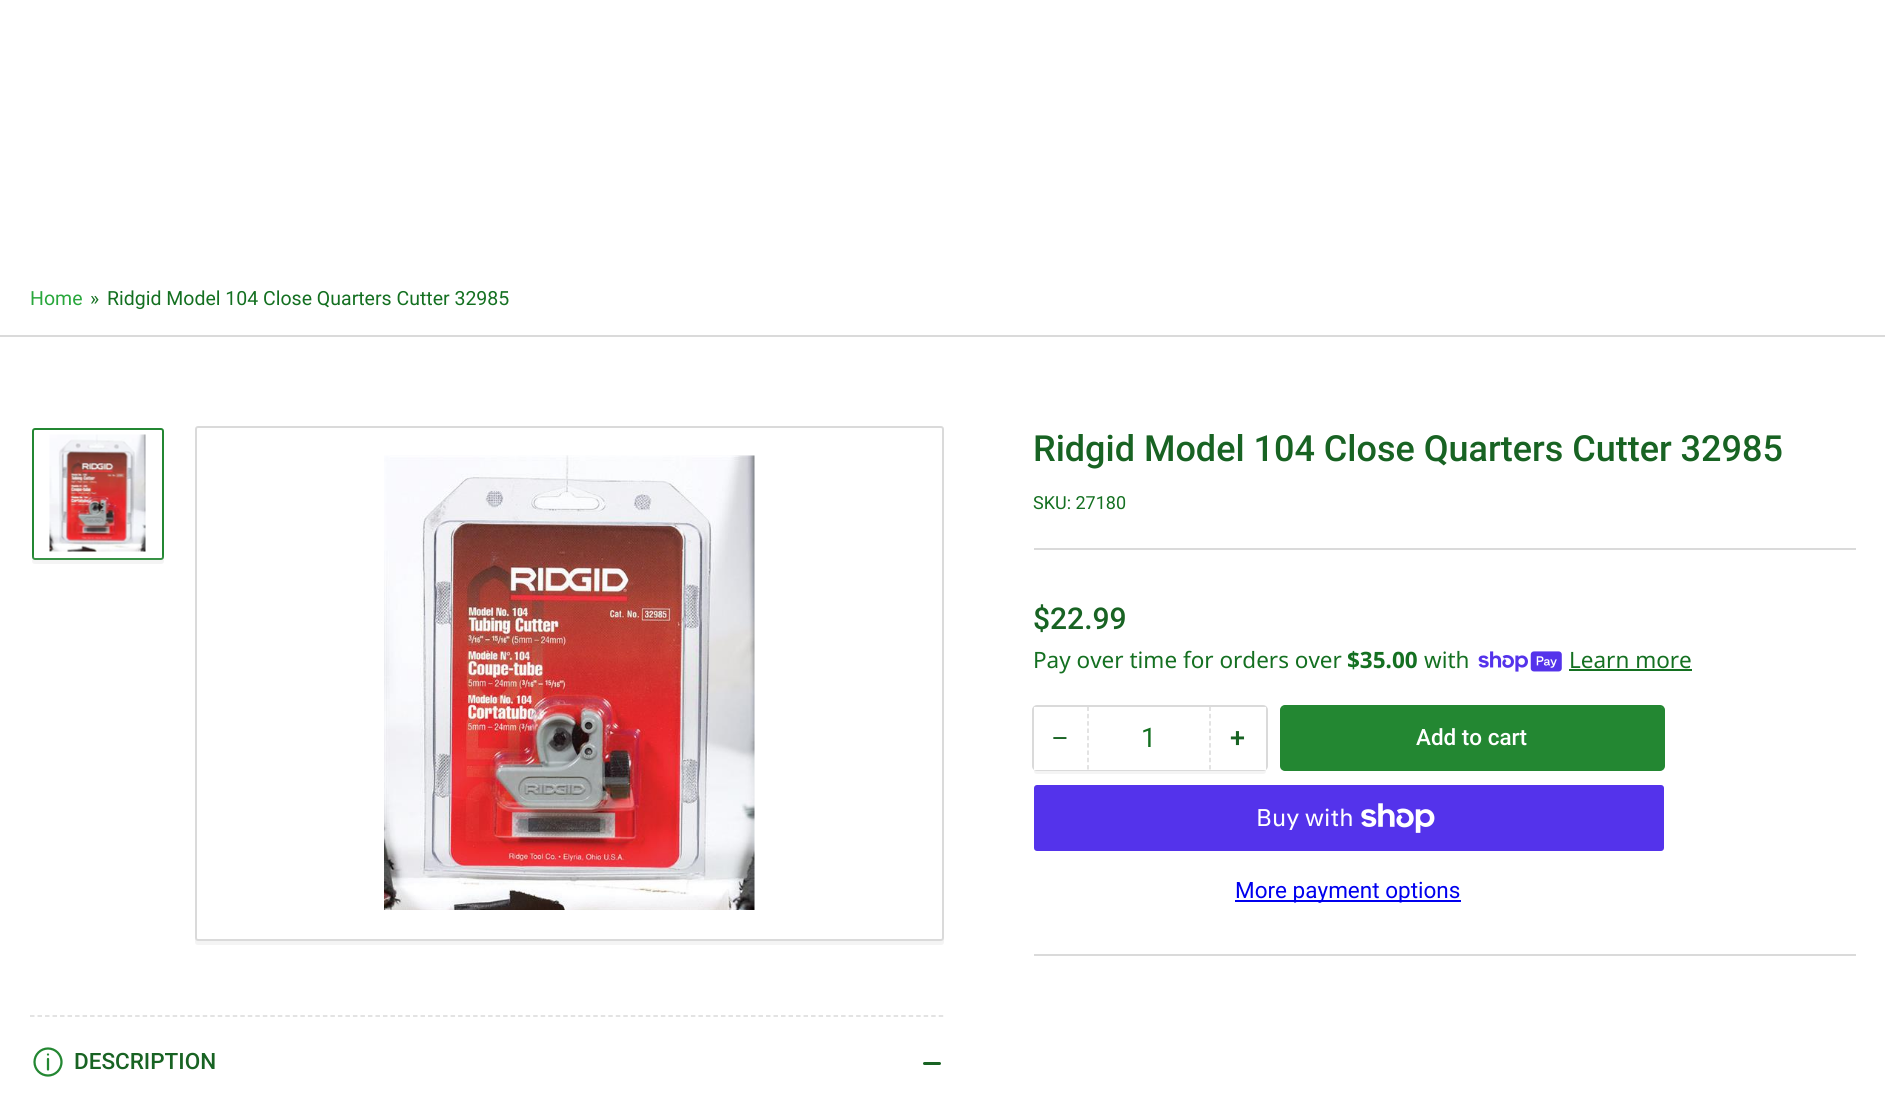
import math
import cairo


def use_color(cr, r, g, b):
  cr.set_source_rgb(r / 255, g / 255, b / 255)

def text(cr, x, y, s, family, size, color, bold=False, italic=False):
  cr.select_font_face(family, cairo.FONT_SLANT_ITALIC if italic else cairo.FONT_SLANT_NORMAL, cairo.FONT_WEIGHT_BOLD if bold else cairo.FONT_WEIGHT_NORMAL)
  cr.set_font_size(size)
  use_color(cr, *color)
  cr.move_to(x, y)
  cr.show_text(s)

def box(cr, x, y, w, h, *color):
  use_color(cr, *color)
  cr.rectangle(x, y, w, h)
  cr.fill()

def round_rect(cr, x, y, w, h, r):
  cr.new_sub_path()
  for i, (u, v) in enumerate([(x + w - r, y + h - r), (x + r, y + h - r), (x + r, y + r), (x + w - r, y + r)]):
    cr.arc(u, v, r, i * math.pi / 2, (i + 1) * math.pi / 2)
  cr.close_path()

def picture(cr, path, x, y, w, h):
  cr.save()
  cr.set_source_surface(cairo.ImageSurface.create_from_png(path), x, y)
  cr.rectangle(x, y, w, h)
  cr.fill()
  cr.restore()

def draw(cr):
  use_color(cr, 255, 255, 255)
  cr.paint()
  box(cr, 0, 335, 1885, 2, 218, 218, 218)
  use_color(cr, 244, 244, 244)
  cr.new_path()
  cr.move_to(32, 558)
  cr.line_to(32, 561)
  cr.curve_to(32, 563, 33, 564, 35, 564)
  cr.line_to(161, 564)
  cr.curve_to(163, 564, 164, 563, 164, 561)
  cr.line_to(164, 435)
  cr.line_to(164, 433)
  cr.line_to(164, 556)
  cr.curve_to(164, 558, 162, 560, 160, 560)
  cr.line_to(34, 560)
  cr.curve_to(33, 560, 33, 559, 32, 558)
  cr.close_path()
  cr.fill()
  use_color(cr, 255, 255, 255)
  round_rect(cr, 33, 429, 130, 130, 2)
  cr.fill_preserve()
  use_color(cr, 35, 135, 50)
  cr.stroke()
  picture(cr, "img_01.png", 49, 434, 97, 118)
  gradient = cairo.LinearGradient(98, 606, 98, 554)
  gradient.add_color_stop_rgba(0, 1, 1, 1, 1)
  gradient.add_color_stop_rgba(1, 1, 1, 1, 0)
  cr.set_source(gradient)
  cr.rectangle(32, 555, 132, 5)
  cr.fill()
  use_color(cr, 244, 244, 244)
  cr.new_path()
  cr.move_to(195, 938)
  cr.line_to(195, 942)
  cr.curve_to(195, 944, 196, 945, 198, 945)
  cr.line_to(941, 945)
  cr.curve_to(943, 945, 944, 944, 944, 942)
  cr.line_to(944, 434)
  cr.line_to(944, 432)
  cr.line_to(944, 938)
  cr.curve_to(944, 939, 942, 940, 940, 940)
  cr.line_to(198, 940)
  cr.curve_to(196, 940, 195, 939, 195, 938)
  cr.close_path()
  cr.fill()
  use_color(cr, 255, 255, 255)
  round_rect(cr, 196, 427, 747, 513, 2)
  cr.fill_preserve()
  use_color(cr, 218, 218, 218)
  cr.stroke()
  picture(cr, "img_02.png", 384, 455, 371, 455)
  box(cr, 1034, 548, 822, 2, 218, 218, 218)
  picture(cr, "img_03.png", 1478, 651, 84, 21)
  box(cr, 1569, 669, 123, 2, 20, 112, 33)
  use_color(cr, 244, 244, 244)
  cr.new_path()
  cr.move_to(1034, 768)
  cr.line_to(1034, 771)
  cr.curve_to(1034, 773, 1035, 774, 1037, 774)
  cr.line_to(1263, 774)
  cr.curve_to(1265, 774, 1266, 773, 1266, 771)
  cr.line_to(1266, 766)
  cr.curve_to(1266, 768, 1265, 770, 1263, 770)
  cr.line_to(1036, 770)
  cr.curve_to(1035, 770, 1035, 769, 1034, 768)
  cr.close_path()
  cr.fill()
  round_rect(cr, 1033, 706, 234, 64, 4)
  use_color(cr, 218, 218, 218)
  cr.stroke()
  box(cr, 1088, 769, 123, 1, 255, 255, 255)
  box(cr, 1034, 707, 54, 63, 255, 255, 255)
  cr.new_path()
  cr.move_to(1210, 706.5)
  cr.line_to(1210, 769.5)
  use_color(cr, 218, 218, 218)
  cr.set_line_width(1.5)
  cr.set_dash([4.5, 2.82])
  cr.stroke()
  cr.new_path()
  cr.move_to(1088, 706.5)
  cr.line_to(1088, 769.5)
  cr.stroke()
  box(cr, 1211, 707, 55, 63, 255, 255, 255)
  round_rect(cr, 1281, 706, 383, 64, 4)
  use_color(cr, 35, 135, 50)
  cr.set_line_width(2)
  cr.set_dash([])
  cr.stroke()
  round_rect(cr, 1281, 707, 383, 63, 3)
  cr.fill()
  use_color(cr, 84, 51, 235)
  round_rect(cr, 1034, 785, 630, 66, 3)
  cr.fill()
  picture(cr, "img_04.png", 1361, 803, 74, 30)
  box(cr, 1235, 900, 226, 2, 0, 0, 238)
  box(cr, 1034, 954, 822, 2, 218, 218, 218)
  cr.new_path()
  cr.move_to(30, 1016)
  cr.line_to(943.5, 1016)
  cr.set_line_width(1.5)
  cr.set_dash([4.5, 3.01])
  cr.stroke()
  picture(cr, "img_05.png", 33, 1047, 30, 30)
  use_color(cr, 24, 99, 35)
  round_rect(cr, 923, 1062, 12, 3, 1.5)
  cr.fill()
  round_rect(cr, 930, 1062, 11, 3, 1.5)
  cr.fill()
  text(cr, 30, 305, "Home", "Roboto", 19.5, (41, 167, 60))
  text(cr, 90, 305, "»", "Roboto", 19.5, (20, 112, 33))
  text(cr, 107, 305, "Ridgid Model 104 Close Quarters Cutter 32985", "Roboto", 19.5, (20, 112, 33))
  text(cr, 1033, 461, "Ridgid Model 104 Close Quarters Cutter 32985", "Roboto Medium", 36, (24, 99, 35))
  text(cr, 1033, 509, "SKU: 27180", "Roboto", 18, (20, 112, 33))
  text(cr, 1033, 629, "$22.99", "Roboto Medium", 30, (24, 99, 35))
  text(cr, 1033, 668, "Pay over time for orders over", "Noto Sans", 22.5, (20, 112, 33))
  text(cr, 1347, 668, "$35.00", "Noto Sans", 22.5, (20, 112, 33), bold=True)
  text(cr, 1424, 668, "with", "Noto Sans", 22.5, (20, 112, 33))
  text(cr, 1569, 668, "Learn more", "Noto Sans", 22.5, (20, 112, 33))
  text(cr, 1052, 747, "−", "Liberation Sans", 27, (24, 99, 35))
  text(cr, 1141, 747, "1", "Roboto", 27, (20, 112, 33))
  text(cr, 1230, 747, "+", "Roboto Medium", 27, (24, 99, 35))
  text(cr, 1416, 745, "Add to cart", "Roboto Medium", 22.5, (255, 255, 255))
  text(cr, 1256, 826, "Buy with", "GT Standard", 24, (255, 255, 255))
  text(cr, 1235, 898, "More payment options", "Roboto", 22.5, (0, 0, 238))
  text(cr, 74, 1069, "DESCRIPTION", "Roboto Medium", 22.5, (24, 99, 35))


surface = cairo.ImageSurface(cairo.FORMAT_RGB24, 1885, 1102)
cr = cairo.Context(surface)
options = cairo.FontOptions()
options.set_hint_metrics(cairo.HINT_METRICS_OFF)
options.set_hint_style(cairo.HINT_STYLE_NONE)
cr.set_font_options(options)
cr.set_miter_limit(4)
draw(cr)
surface.write_to_png("out.png")
